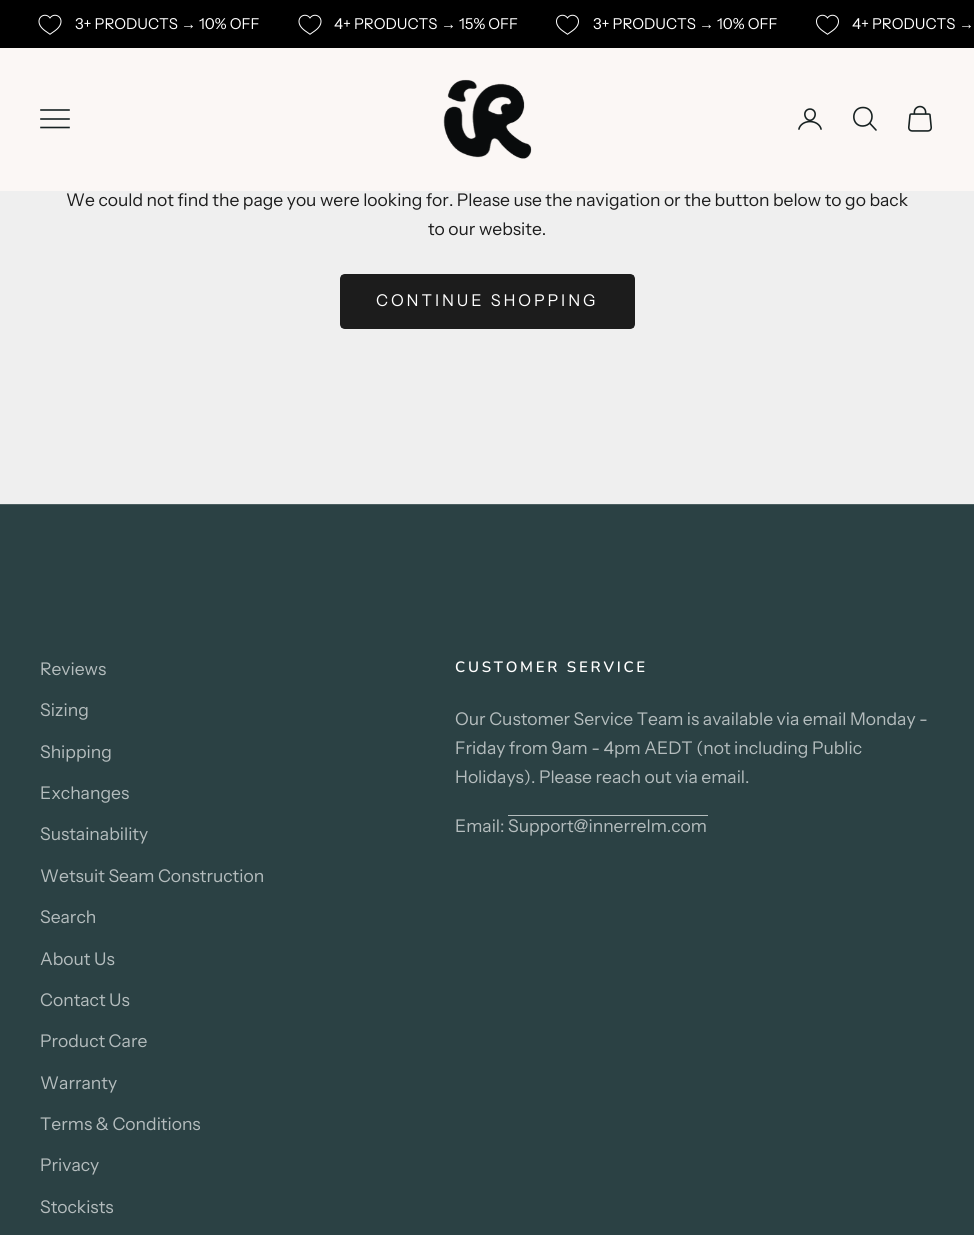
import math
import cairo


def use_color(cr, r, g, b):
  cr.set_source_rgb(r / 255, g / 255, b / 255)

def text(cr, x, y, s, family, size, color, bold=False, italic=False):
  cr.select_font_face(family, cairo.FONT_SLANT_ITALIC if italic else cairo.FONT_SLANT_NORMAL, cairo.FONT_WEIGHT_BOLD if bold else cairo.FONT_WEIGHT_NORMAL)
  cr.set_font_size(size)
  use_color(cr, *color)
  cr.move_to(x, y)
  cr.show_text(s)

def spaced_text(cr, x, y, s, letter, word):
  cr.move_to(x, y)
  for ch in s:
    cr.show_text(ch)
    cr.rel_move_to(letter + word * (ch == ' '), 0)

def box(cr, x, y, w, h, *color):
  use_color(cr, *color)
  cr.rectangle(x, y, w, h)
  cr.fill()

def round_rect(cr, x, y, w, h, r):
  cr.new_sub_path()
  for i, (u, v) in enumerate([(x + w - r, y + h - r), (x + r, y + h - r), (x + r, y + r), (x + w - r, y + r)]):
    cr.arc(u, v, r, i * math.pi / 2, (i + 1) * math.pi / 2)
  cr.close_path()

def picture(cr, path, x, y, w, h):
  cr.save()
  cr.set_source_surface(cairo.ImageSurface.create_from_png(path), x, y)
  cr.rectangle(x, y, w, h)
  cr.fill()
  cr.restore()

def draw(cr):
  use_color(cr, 239, 239, 239)
  cr.paint()
  box(cr, 0, 0, 974, 48, 0, 0, 0)
  picture(cr, "img_01.png", 38, 14, 24, 21)
  picture(cr, "img_01.png", 298, 14, 24, 21)
  picture(cr, "img_02.png", 556, 14, 23, 21)
  picture(cr, "img_02.png", 816, 14, 23, 21)
  box(cr, 0, 48, 974, 143, 251, 247, 245)
  cr.new_path()
  cr.move_to(41, 127.5)
  cr.line_to(69, 127.5)
  cr.move_to(41, 119)
  cr.line_to(69, 119)
  cr.move_to(41, 110)
  cr.line_to(69, 110)
  use_color(cr, 23, 33, 33)
  cr.set_line_width(1.6)
  cr.set_line_cap(cairo.LINE_CAP_SQUARE)
  cr.stroke()
  picture(cr, "img_03.png", 443, 79, 89, 80)
  picture(cr, "img_04.png", 798, 108, 24, 22)
  cr.new_path()
  cr.move_to(863, 107.5)
  cr.curve_to(850.5, 107.5, 851, 126.5, 863, 126)
  cr.curve_to(875, 125.5, 875, 107.5, 863, 107.5)
  cr.close_path()
  cr.set_line_cap(cairo.LINE_CAP_BUTT)
  cr.stroke()
  cr.new_path()
  cr.move_to(870, 123.5)
  cr.line_to(876, 130)
  cr.set_line_cap(cairo.LINE_CAP_ROUND)
  cr.stroke()
  picture(cr, "img_05.png", 908, 105, 24, 27)
  cr.save()
  round_rect(cr, 340, 274, 295, 55, 5)
  cr.clip()
  box(cr, 341, 275, 293, 53, 28, 28, 28)
  cr.restore()
  round_rect(cr, 340.5, 274.5, 294, 54, 4.5)
  use_color(cr, 28, 28, 28)
  cr.set_line_width(1)
  cr.set_line_cap(cairo.LINE_CAP_BUTT)
  cr.stroke()
  box(cr, 0, 505, 974, 730, 43, 65, 68)
  box(cr, 0, 504, 974, 1, 75, 94, 96)
  box(cr, 508, 815, 200, 1, 181, 189, 190)
  text(cr, 75, 29, "3+ PRODUCTS", "Instrument Sans", 15, (255, 255, 255))
  text(cr, 181, 29, "→", "Liberation Sans", 15, (255, 255, 255))
  text(cr, 199, 29, "10% OFF", "Instrument Sans", 15, (255, 255, 255))
  text(cr, 334, 29, "4+ PRODUCTS", "Instrument Sans", 15, (255, 255, 255))
  text(cr, 441, 29, "→", "Liberation Sans", 15, (255, 255, 255))
  text(cr, 459, 29, "15% OFF", "Instrument Sans", 15, (255, 255, 255))
  text(cr, 593, 29, "3+ PRODUCTS", "Instrument Sans", 15, (255, 255, 255))
  text(cr, 699, 29, "→", "Liberation Sans", 15, (255, 255, 255))
  text(cr, 717, 29, "10% OFF", "Instrument Sans", 15, (255, 255, 255))
  text(cr, 852, 29, "4+ PRODUCTS", "Instrument Sans", 15, (255, 255, 255))
  text(cr, 959, 29, "→", "Liberation Sans", 15, (255, 255, 255))
  text(cr, 66, 206, "We could not find the page you were looking for. Please use the navigation or the button below to go back", "Instrument Sans", 17.5, (28, 28, 28))
  text(cr, 428, 235, "to our website.", "Instrument Sans", 17.5, (28, 28, 28))
  cr.set_font_size(16.25)
  use_color(cr, 255, 255, 255)
  spaced_text(cr, 376, 306, "CONTINUE SHOPPING", 2.9, 0)
  text(cr, 40, 675, "Reviews", "Instrument Sans", 17.5, (181, 189, 190))
  text(cr, 40, 716, "Sizing", "Instrument Sans", 17.5, (181, 189, 190))
  text(cr, 40, 758, "Shipping", "Instrument Sans", 17.5, (181, 189, 190))
  text(cr, 40, 799, "Exchanges", "Instrument Sans", 17.5, (181, 189, 190))
  text(cr, 40, 840, "Sustainability", "Instrument Sans", 17.5, (181, 189, 190))
  text(cr, 40, 882, "Wetsuit Seam Construction", "Instrument Sans", 17.5, (181, 189, 190))
  text(cr, 40, 923, "Search", "Instrument Sans", 17.5, (181, 189, 190))
  text(cr, 40, 965, "About Us", "Instrument Sans", 17.5, (181, 189, 190))
  text(cr, 40, 1006, "Contact Us", "Instrument Sans", 17.5, (181, 189, 190))
  text(cr, 40, 1047, "Product Care", "Instrument Sans", 17.5, (181, 189, 190))
  text(cr, 40, 1089, "Warranty", "Instrument Sans", 17.5, (181, 189, 190))
  text(cr, 40, 1130, "Terms & Conditions", "Instrument Sans", 17.5, (181, 189, 190))
  text(cr, 40, 1171, "Privacy", "Instrument Sans", 17.5, (181, 189, 190))
  text(cr, 40, 1213, "Stockists", "Instrument Sans", 17.5, (181, 189, 190))
  cr.select_font_face("Nunito SemiBold")
  cr.set_font_size(15)
  use_color(cr, 255, 255, 255)
  spaced_text(cr, 455, 672, "CUSTOMER SERVICE", 2.75, 0)
  text(cr, 455, 725, "Our Customer Service Team is available via email Monday -", "Instrument Sans", 17.5, (181, 189, 190))
  text(cr, 455, 754, "Friday from 9am - 4pm AEDT (not including Public", "Instrument Sans", 17.5, (181, 189, 190))
  text(cr, 455, 783, "Holidays). Please reach out via email.", "Instrument Sans", 17.5, (181, 189, 190))
  text(cr, 455, 832, "Email: Support@innerrelm.com", "Instrument Sans", 17.5, (181, 189, 190))


surface = cairo.ImageSurface(cairo.FORMAT_RGB24, 974, 1235)
cr = cairo.Context(surface)
options = cairo.FontOptions()
options.set_hint_metrics(cairo.HINT_METRICS_OFF)
options.set_hint_style(cairo.HINT_STYLE_NONE)
cr.set_font_options(options)
cr.set_miter_limit(4)
draw(cr)
surface.write_to_png("out.png")
